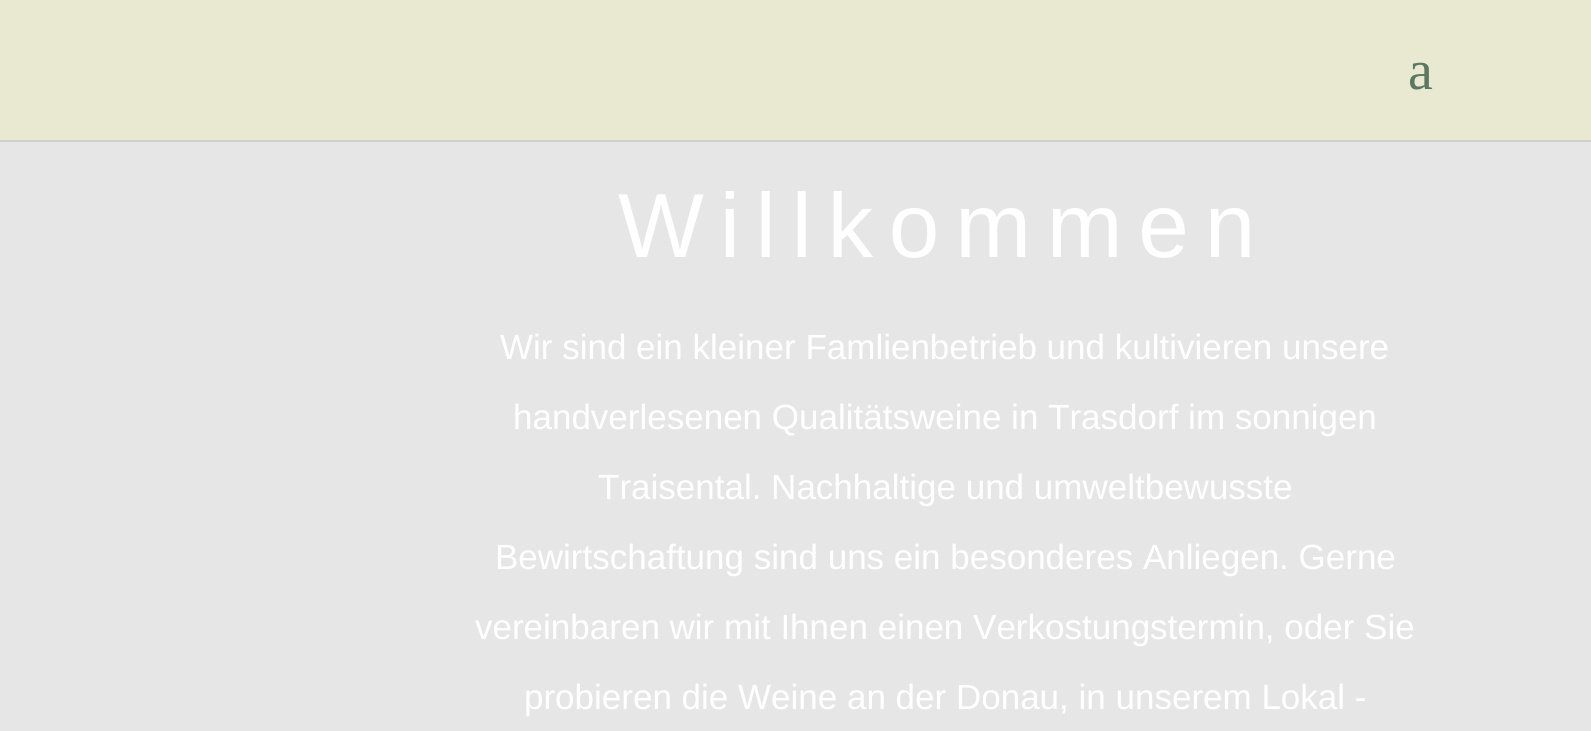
import math
import cairo


def use_color(cr, r, g, b):
  cr.set_source_rgb(r / 255, g / 255, b / 255)

def text(cr, x, y, s, family, size, color, bold=False, italic=False):
  cr.select_font_face(family, cairo.FONT_SLANT_ITALIC if italic else cairo.FONT_SLANT_NORMAL, cairo.FONT_WEIGHT_BOLD if bold else cairo.FONT_WEIGHT_NORMAL)
  cr.set_font_size(size)
  use_color(cr, *color)
  cr.move_to(x, y)
  cr.show_text(s)

def spaced_text(cr, x, y, s, letter, word):
  cr.move_to(x, y)
  for ch in s:
    cr.show_text(ch)
    cr.rel_move_to(letter + word * (ch == ' '), 0)

def box(cr, x, y, w, h, *color):
  use_color(cr, *color)
  cr.rectangle(x, y, w, h)
  cr.fill()

def draw(cr):
  use_color(cr, 233, 232, 209)
  cr.paint()
  use_color(cr, 207, 207, 207)
  cr.new_path()
  cr.move_to(0, 140)
  cr.line_to(0, 142)
  cr.line_to(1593, 142)
  cr.line_to(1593, 2)
  cr.line_to(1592, 2)
  cr.line_to(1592, 140)
  cr.close_path()
  cr.fill()
  box(cr, 0, 142, 1591, 589, 230, 230, 230)
  text(cr, 1408, 89, "a", "Liberation Serif", 56, (93, 120, 98))
  cr.select_font_face("Liberation Sans")
  cr.set_font_size(91)
  use_color(cr, 255, 255, 255)
  spaced_text(cr, 618, 257, "Willkommen", 15.75, 0)
  text(cr, 500, 359, "Wir sind ein kleiner Famlienbetrieb und kultivieren unsere", "Liberation Sans", 35, (255, 255, 255))
  text(cr, 513, 429, "handverlesenen Qualitätsweine in Trasdorf im sonnigen", "Liberation Sans", 35, (255, 255, 255))
  text(cr, 598, 499, "Traisental. Nachhaltige und umweltbewusste", "Liberation Sans", 35, (255, 255, 255))
  text(cr, 495, 569, "Bewirtschaftung sind uns ein besonderes Anliegen. Gerne", "Liberation Sans", 35, (255, 255, 255))
  text(cr, 475, 639, "vereinbaren wir mit Ihnen einen Verkostungstermin, oder Sie", "Liberation Sans", 35, (255, 255, 255))
  text(cr, 524, 709, "probieren die Weine an der Donau, in unserem Lokal -", "Liberation Sans", 35, (255, 255, 255))


surface = cairo.ImageSurface(cairo.FORMAT_RGB24, 1591, 731)
cr = cairo.Context(surface)
options = cairo.FontOptions()
options.set_hint_metrics(cairo.HINT_METRICS_OFF)
options.set_hint_style(cairo.HINT_STYLE_NONE)
cr.set_font_options(options)
cr.set_miter_limit(4)
draw(cr)
surface.write_to_png("out.png")
